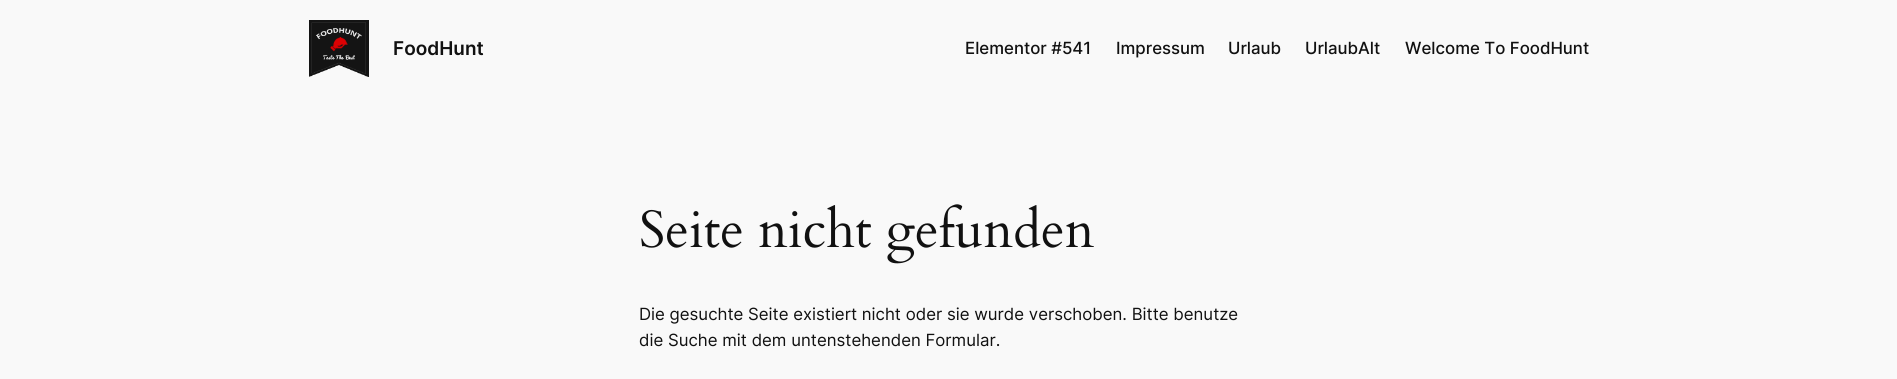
import math
import cairo


def use_color(cr, r, g, b):
  cr.set_source_rgb(r / 255, g / 255, b / 255)

def text(cr, x, y, s, family, size, color, bold=False, italic=False):
  cr.select_font_face(family, cairo.FONT_SLANT_ITALIC if italic else cairo.FONT_SLANT_NORMAL, cairo.FONT_WEIGHT_BOLD if bold else cairo.FONT_WEIGHT_NORMAL)
  cr.set_font_size(size)
  use_color(cr, *color)
  cr.move_to(x, y)
  cr.show_text(s)

def picture(cr, path, x, y, w, h):
  cr.save()
  cr.set_source_surface(cairo.ImageSurface.create_from_png(path), x, y)
  cr.rectangle(x, y, w, h)
  cr.fill()
  cr.restore()

def draw(cr):
  use_color(cr, 249, 249, 249)
  cr.paint()
  picture(cr, "img_01.png", 309, 20, 60, 57)
  picture(cr, "img_02.png", 641, 204, 453, 60)
  text(cr, 393, 55, "FoodHunt", "Inter SemiBold", 19, (17, 17, 17))
  text(cr, 965, 54, "Elementor #541", "Inter Medium", 16.8, (17, 17, 17))
  text(cr, 1116, 54, "Impressum", "Inter Medium", 16.8, (17, 17, 17))
  text(cr, 1228, 54, "Urlaub", "Inter Medium", 16.8, (17, 17, 17))
  text(cr, 1305, 54, "UrlaubAlt", "Inter Medium", 16.8, (17, 17, 17))
  text(cr, 1405, 54, "Welcome To FoodHunt", "Inter Medium", 16.8, (17, 17, 17))
  text(cr, 639, 320, "Die gesuchte Seite existiert nicht oder sie wurde verschoben. Bitte benutze", "Inter", 16.8, (17, 17, 17))
  text(cr, 639, 346, "die Suche mit dem untenstehenden Formular.", "Inter", 16.8, (17, 17, 17))


surface = cairo.ImageSurface(cairo.FORMAT_RGB24, 1897, 379)
cr = cairo.Context(surface)
options = cairo.FontOptions()
options.set_hint_metrics(cairo.HINT_METRICS_OFF)
options.set_hint_style(cairo.HINT_STYLE_NONE)
cr.set_font_options(options)
cr.set_miter_limit(4)
draw(cr)
surface.write_to_png("out.png")
